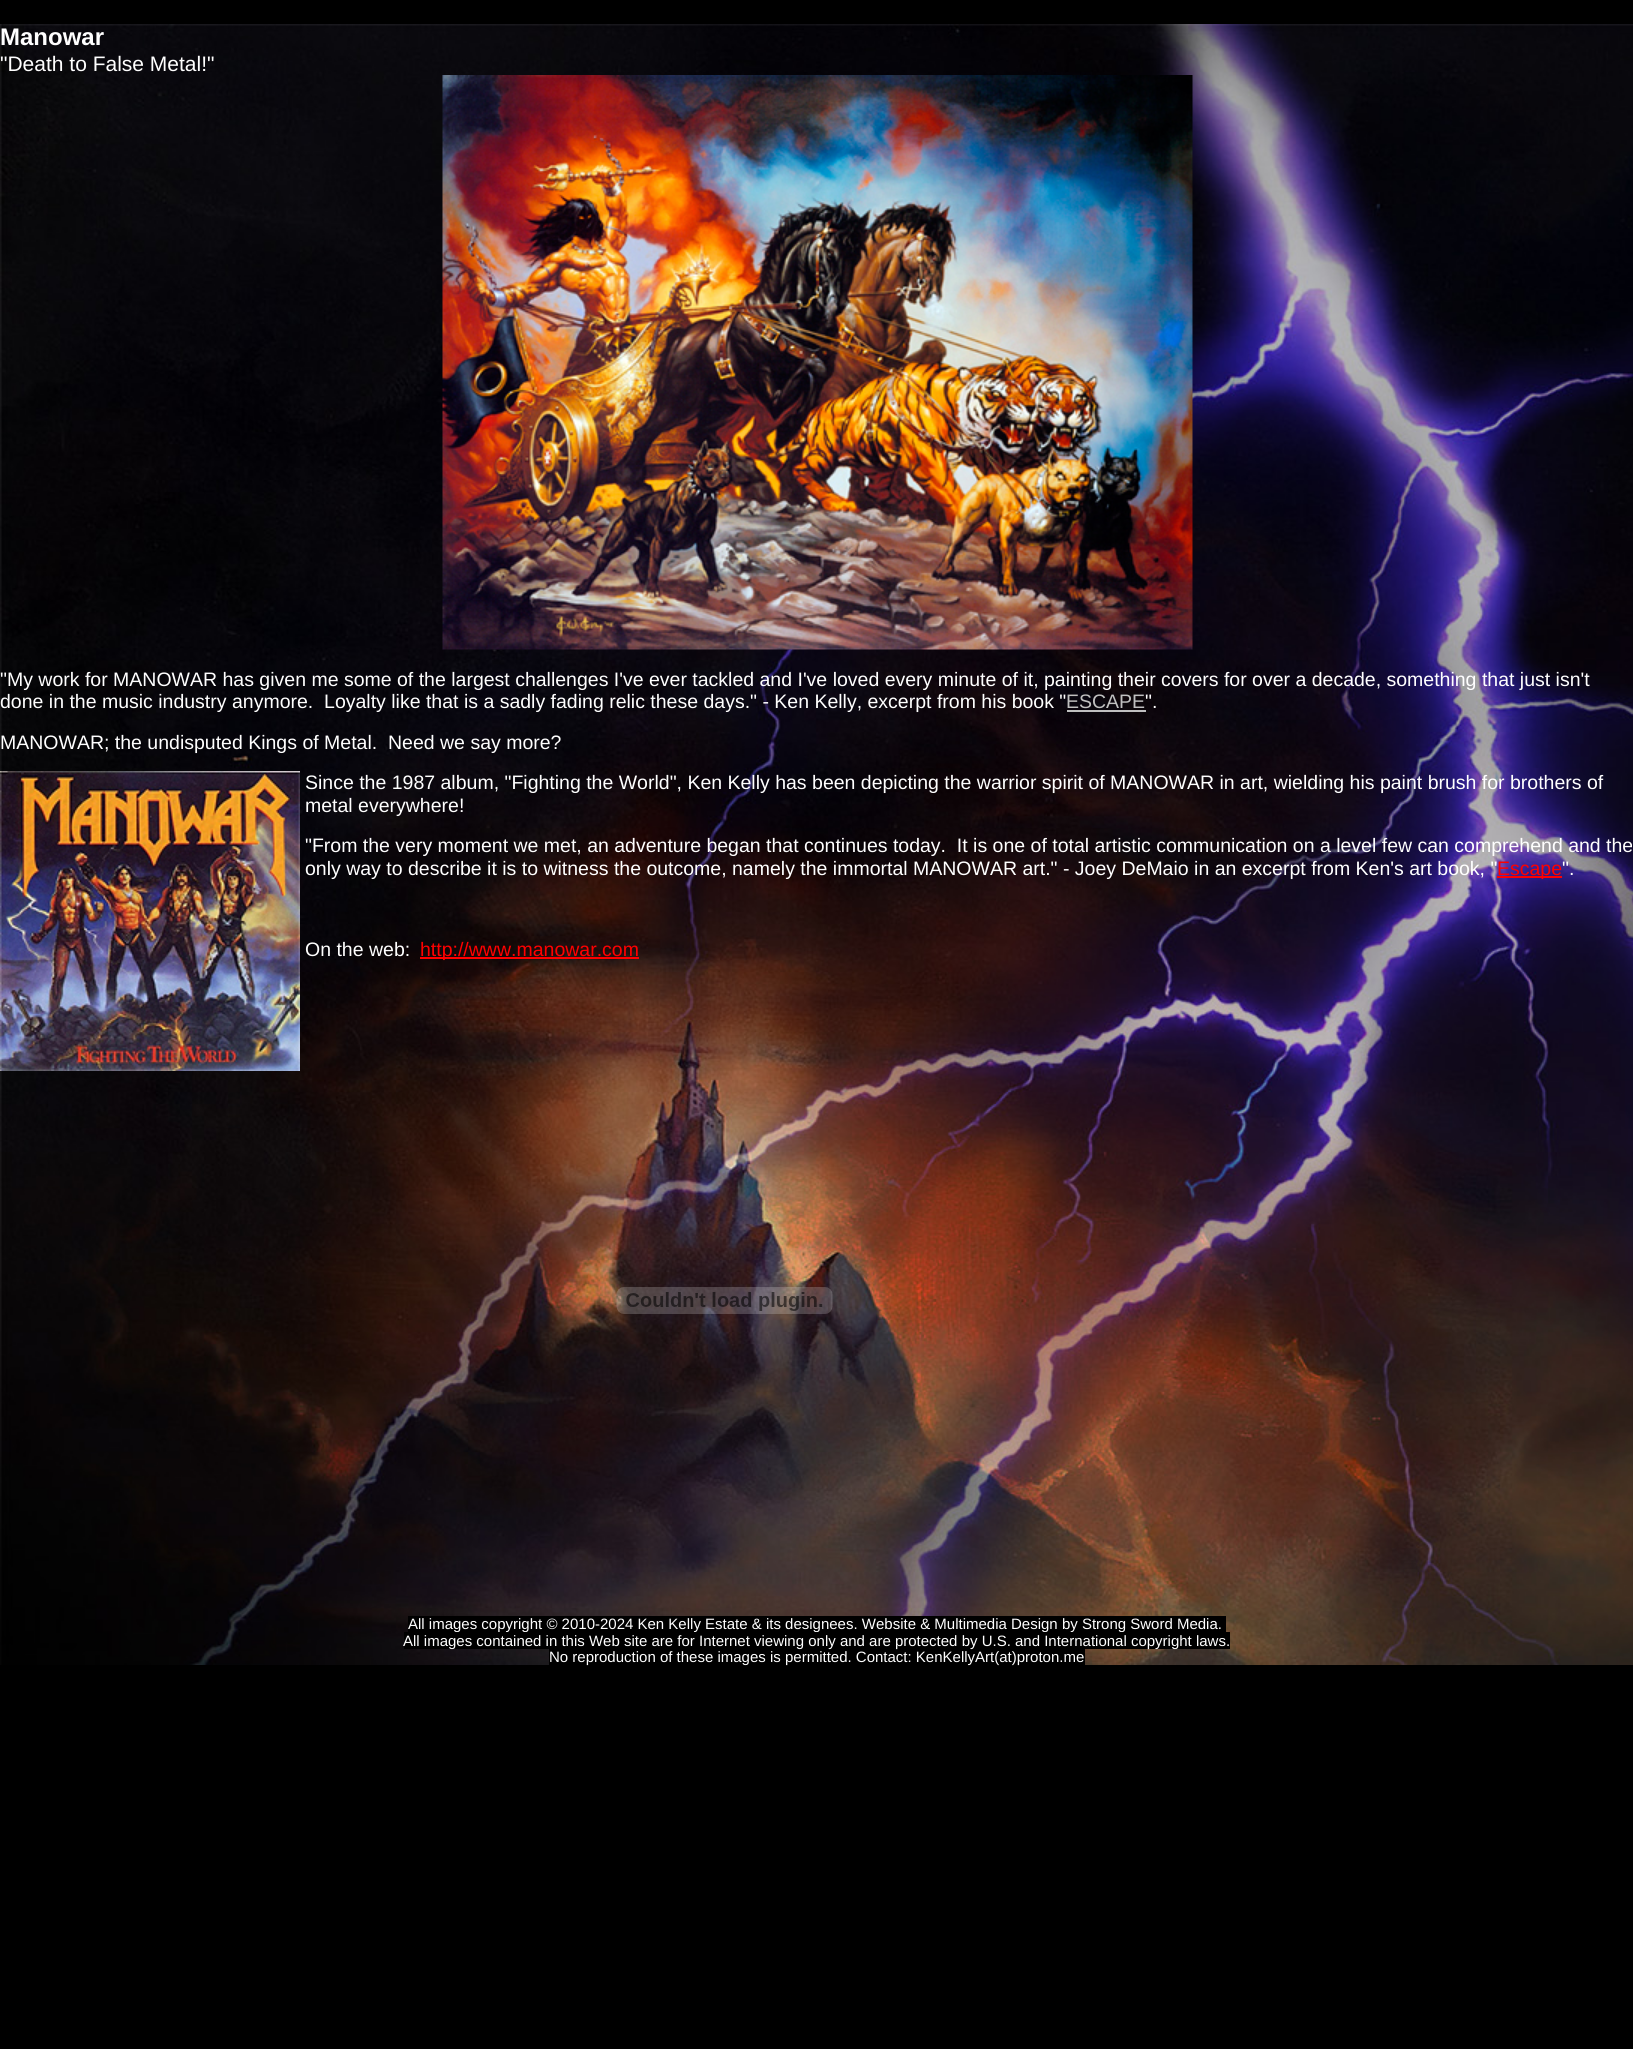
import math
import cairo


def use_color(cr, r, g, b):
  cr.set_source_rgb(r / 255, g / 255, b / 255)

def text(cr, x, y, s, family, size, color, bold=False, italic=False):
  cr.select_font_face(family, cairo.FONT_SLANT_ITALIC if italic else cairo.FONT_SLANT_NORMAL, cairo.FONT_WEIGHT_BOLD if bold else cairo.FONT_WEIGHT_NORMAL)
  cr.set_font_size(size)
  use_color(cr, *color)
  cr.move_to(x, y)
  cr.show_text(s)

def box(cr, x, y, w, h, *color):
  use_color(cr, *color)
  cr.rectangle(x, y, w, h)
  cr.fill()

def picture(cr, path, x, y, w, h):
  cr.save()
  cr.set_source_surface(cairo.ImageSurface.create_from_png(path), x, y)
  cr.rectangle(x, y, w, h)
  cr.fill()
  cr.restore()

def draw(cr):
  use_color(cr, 0, 0, 0)
  cr.paint()
  picture(cr, "img_01.png", 0, 24, 1633, 1641)
  picture(cr, "img_02.png", 442, 75, 751, 575)
  box(cr, 1067, 710, 79, 2, 192, 192, 192)
  picture(cr, "img_03.png", 0, 771, 300, 300)
  box(cr, 1497, 876, 65, 2, 255, 0, 0)
  box(cr, 420, 957, 219, 2, 255, 0, 0)
  picture(cr, "img_04.png", 616, 1287, 217, 27)
  box(cr, 408, 1616, 818, 16, 0, 0, 0)
  box(cr, 549, 1649, 536, 16, 0, 0, 0)
  text(cr, 0, 45, "Manowar", "Liberation Sans", 24, (255, 255, 255), bold=True)
  text(cr, 0, 71, "\"Death to False Metal!\"", "Liberation Sans", 21, (255, 255, 255))
  text(cr, 0, 686, "\"My work for MANOWAR has given me some of the largest challenges I've ever tackled and I've loved every minute of it, painting their covers for over a decade, something that just isn't", "Liberation Sans", 19.5, (255, 255, 255))
  text(cr, 0, 708, "done in the music industry anymore.  Loyalty like that is a sadly fading relic these days.\" - Ken Kelly, excerpt from his book \"", "Liberation Sans", 19.5, (255, 255, 255))
  text(cr, 1066, 708, "ESCAPE", "Liberation Sans", 19.5, (192, 192, 192))
  text(cr, 1145, 708, "\".", "Liberation Sans", 19.5, (255, 255, 255))
  text(cr, 0, 749, "MANOWAR; the undisputed Kings of Metal.  Need we say more?", "Liberation Sans", 19.5, (255, 255, 255))
  text(cr, 305, 789, "Since the 1987 album, \"Fighting the World\", Ken Kelly has been depicting the warrior spirit of MANOWAR in art, wielding his paint brush for brothers of", "Liberation Sans", 19.5, (255, 255, 255))
  text(cr, 305, 812, "metal everywhere!", "Liberation Sans", 19.5, (255, 255, 255))
  text(cr, 305, 852, "\"From the very moment we met, an adventure began that continues today.  It is one of total artistic communication on a level few can comprehend and the", "Liberation Sans", 19.5, (255, 255, 255))
  text(cr, 305, 875, "only way to describe it is to witness the outcome, namely the immortal MANOWAR art.\" - Joey DeMaio in an excerpt from Ken's art book, \"", "Liberation Sans", 19.5, (255, 255, 255))
  text(cr, 1497, 875, "Escape", "Liberation Sans", 19.5, (255, 0, 0))
  text(cr, 1562, 875, "\".", "Liberation Sans", 19.5, (255, 255, 255))
  text(cr, 305, 956, "On the web:", "Liberation Sans", 19.5, (255, 255, 255))
  text(cr, 420, 956, "http://www.manowar.com", "Liberation Sans", 19.5, (255, 0, 0))
  text(cr, 408, 1629, "All images copyright © 2010-2024 Ken Kelly Estate & its designees. Website & Multimedia Design by Strong Sword Media.", "Liberation Sans", 15, (255, 255, 255))
  box(cr, 404, 1632, 826, 17, 0, 0, 0)
  text(cr, 403, 1646, "All images contained in this Web site are for Internet viewing only and are protected by U.S. and International copyright laws.", "Liberation Sans", 15, (255, 255, 255))
  text(cr, 549, 1662, "No reproduction of these images is permitted. Contact: KenKellyArt(at)proton.me", "Liberation Sans", 15, (255, 255, 255))


surface = cairo.ImageSurface(cairo.FORMAT_RGB24, 1633, 2049)
cr = cairo.Context(surface)
options = cairo.FontOptions()
options.set_hint_metrics(cairo.HINT_METRICS_OFF)
options.set_hint_style(cairo.HINT_STYLE_NONE)
cr.set_font_options(options)
cr.set_miter_limit(4)
draw(cr)
surface.write_to_png("out.png")
